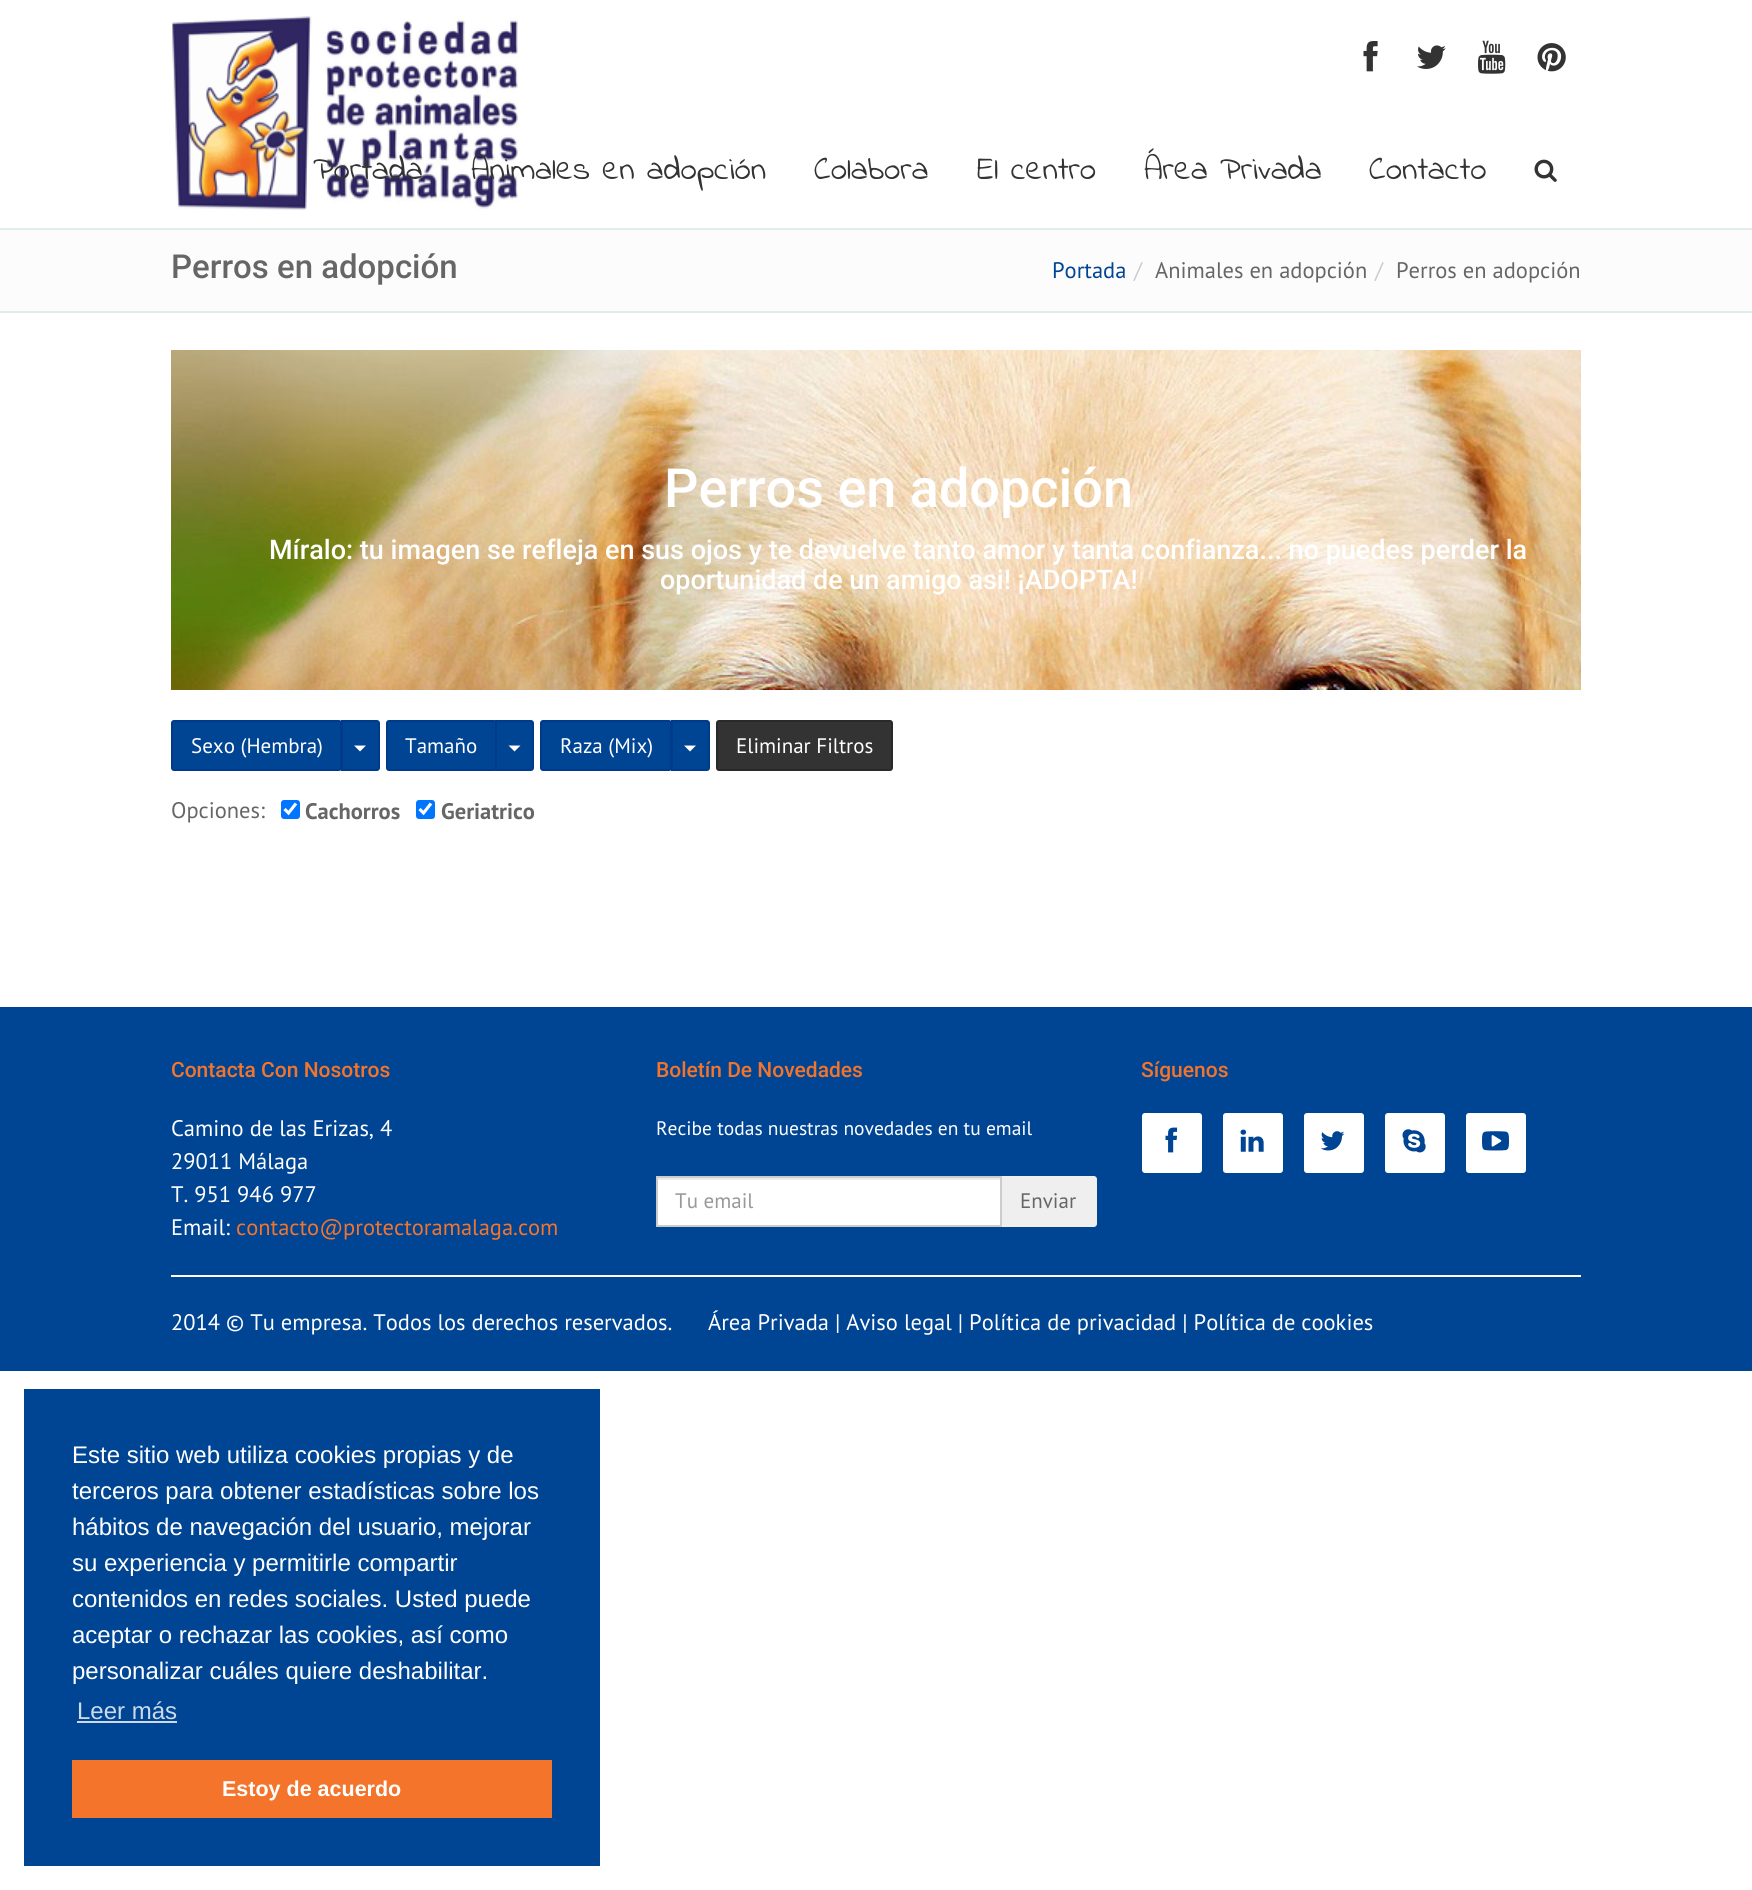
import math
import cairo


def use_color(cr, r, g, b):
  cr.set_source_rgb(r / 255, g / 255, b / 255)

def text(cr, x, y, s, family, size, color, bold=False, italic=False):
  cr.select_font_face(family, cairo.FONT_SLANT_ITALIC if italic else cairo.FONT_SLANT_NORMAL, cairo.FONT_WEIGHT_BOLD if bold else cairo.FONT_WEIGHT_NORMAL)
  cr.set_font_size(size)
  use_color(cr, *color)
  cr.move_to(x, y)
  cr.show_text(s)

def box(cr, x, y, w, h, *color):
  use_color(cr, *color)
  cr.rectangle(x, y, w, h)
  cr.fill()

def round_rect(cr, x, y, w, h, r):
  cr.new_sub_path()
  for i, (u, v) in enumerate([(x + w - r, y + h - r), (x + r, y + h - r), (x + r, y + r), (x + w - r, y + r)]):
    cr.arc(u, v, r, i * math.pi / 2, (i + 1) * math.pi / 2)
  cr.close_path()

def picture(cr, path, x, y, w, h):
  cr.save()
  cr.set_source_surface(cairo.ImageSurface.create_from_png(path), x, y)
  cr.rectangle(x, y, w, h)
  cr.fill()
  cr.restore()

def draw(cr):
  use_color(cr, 255, 255, 255)
  cr.paint()
  box(cr, 0, 228, 1752, 2, 224, 237, 237)
  picture(cr, "img_01.png", 172, 16, 346, 195)
  picture(cr, "img_02.png", 1363, 41, 15, 31)
  picture(cr, "img_03.png", 1417, 45, 29, 24)
  picture(cr, "img_04.png", 1478, 40, 28, 34)
  picture(cr, "img_05.png", 1537, 43, 29, 29)
  picture(cr, "img_06.png", 1534, 159, 23, 23)
  box(cr, 0, 230, 1752, 81, 252, 252, 252)
  box(cr, 0, 311, 1752, 2, 224, 237, 237)
  picture(cr, "img_07.png", 171, 350, 1410, 340)
  use_color(cr, 0, 68, 148)
  round_rect(cr, 172, 721, 169, 49, 2)
  cr.fill_preserve()
  use_color(cr, 0, 58, 138)
  cr.stroke()
  use_color(cr, 0, 68, 148)
  cr.new_path()
  cr.move_to(342, 721)
  cr.line_to(377, 721)
  cr.curve_to(378, 721, 379, 722, 379, 723)
  cr.line_to(379, 768)
  cr.curve_to(379, 769, 378, 770, 377, 770)
  cr.line_to(342, 770)
  cr.close_path()
  cr.fill_preserve()
  use_color(cr, 0, 58, 138)
  cr.stroke()
  use_color(cr, 255, 255, 255)
  cr.new_path()
  cr.move_to(354, 745.5)
  cr.line_to(366, 745.5)
  cr.line_to(360, 751.5)
  cr.close_path()
  cr.fill()
  use_color(cr, 0, 68, 148)
  round_rect(cr, 387, 721, 109, 49, 2)
  cr.fill_preserve()
  use_color(cr, 0, 58, 138)
  cr.stroke()
  use_color(cr, 0, 68, 148)
  cr.new_path()
  cr.move_to(496, 721)
  cr.line_to(531, 721)
  cr.curve_to(532, 721, 533, 722, 533, 723)
  cr.line_to(533, 768)
  cr.curve_to(533, 769, 532, 770, 531, 770)
  cr.line_to(496, 770)
  cr.close_path()
  cr.fill_preserve()
  use_color(cr, 0, 58, 138)
  cr.stroke()
  use_color(cr, 255, 255, 255)
  cr.new_path()
  cr.move_to(508.5, 745.5)
  cr.line_to(520.5, 745.5)
  cr.line_to(514.5, 751.5)
  cr.close_path()
  cr.fill()
  use_color(cr, 0, 68, 148)
  round_rect(cr, 541, 721, 130, 49, 2)
  cr.fill_preserve()
  use_color(cr, 0, 58, 138)
  cr.stroke()
  use_color(cr, 0, 68, 148)
  cr.new_path()
  cr.move_to(672, 721)
  cr.line_to(707, 721)
  cr.curve_to(708, 721, 709, 722, 709, 723)
  cr.line_to(709, 768)
  cr.curve_to(709, 769, 708, 770, 707, 770)
  cr.line_to(672, 770)
  cr.close_path()
  cr.fill_preserve()
  use_color(cr, 0, 58, 138)
  cr.stroke()
  use_color(cr, 255, 255, 255)
  cr.new_path()
  cr.move_to(684, 745.5)
  cr.line_to(696, 745.5)
  cr.line_to(690, 751.5)
  cr.close_path()
  cr.fill()
  use_color(cr, 51, 51, 51)
  round_rect(cr, 717, 721, 175, 49, 2)
  cr.fill_preserve()
  use_color(cr, 41, 41, 41)
  cr.stroke()
  use_color(cr, 0, 117, 255)
  round_rect(cr, 281, 800, 19, 19, 3)
  cr.fill()
  cr.new_path()
  cr.move_to(284.5, 809)
  cr.line_to(288.5, 813)
  cr.line_to(296, 803.5)
  use_color(cr, 255, 255, 255)
  cr.set_line_width(3.1)
  cr.stroke()
  use_color(cr, 0, 117, 255)
  round_rect(cr, 416, 800, 19, 19, 3)
  cr.fill()
  cr.new_path()
  cr.move_to(419.5, 809)
  cr.line_to(423.5, 813)
  cr.line_to(431, 803.5)
  use_color(cr, 255, 255, 255)
  cr.stroke()
  box(cr, 0, 1007, 1752, 364, 0, 69, 147)
  use_color(cr, 239, 239, 239)
  cr.new_path()
  cr.move_to(1001, 1176)
  cr.line_to(1094, 1176)
  cr.curve_to(1095.5, 1176, 1097, 1177.5, 1097, 1179)
  cr.line_to(1097, 1224)
  cr.curve_to(1097, 1225.5, 1095.5, 1227, 1094, 1227)
  cr.line_to(1001, 1227)
  cr.close_path()
  cr.fill()
  use_color(cr, 255, 255, 255)
  cr.new_path()
  cr.move_to(657.5, 1176)
  cr.line_to(1002, 1176)
  cr.line_to(1002, 1227)
  cr.line_to(657.5, 1227)
  cr.curve_to(656.5, 1227, 656, 1226.5, 656, 1225.5)
  cr.line_to(656, 1177.5)
  cr.curve_to(656, 1176.5, 656.5, 1176, 657.5, 1176)
  cr.close_path()
  cr.fill()
  box(cr, 657, 1178, 344, 2, 236, 236, 236)
  cr.new_path()
  cr.move_to(657.5, 1177)
  cr.line_to(1001, 1177)
  cr.line_to(1001, 1226)
  cr.line_to(657.5, 1226)
  cr.curve_to(657, 1226, 657, 1226, 657, 1225.5)
  cr.line_to(657, 1177.5)
  cr.curve_to(657, 1177, 657, 1177, 657.5, 1177)
  cr.close_path()
  use_color(cr, 204, 204, 204)
  cr.set_line_width(2)
  cr.stroke()
  use_color(cr, 255, 255, 255)
  round_rect(cr, 1142, 1113, 60, 60, 3)
  cr.fill()
  picture(cr, "img_08.png", 1165, 1127, 13, 26)
  round_rect(cr, 1223, 1113, 60, 60, 3)
  cr.fill()
  picture(cr, "img_09.png", 1240, 1129, 24, 23)
  round_rect(cr, 1304, 1113, 60, 60, 3)
  cr.fill()
  picture(cr, "img_10.png", 1320, 1131, 25, 20)
  round_rect(cr, 1385, 1113, 60, 60, 3)
  cr.fill()
  picture(cr, "img_11.png", 1402, 1129, 24, 24)
  round_rect(cr, 1466, 1113, 60, 60, 3)
  cr.fill()
  picture(cr, "img_12.png", 1482, 1131, 27, 20)
  box(cr, 171, 1275, 1410, 2, 255, 255, 255)
  box(cr, 24, 1389, 576, 477, 0, 69, 147)
  box(cr, 77, 1721, 100, 2, 204, 218, 233)
  box(cr, 72, 1760, 480, 58, 244, 116, 43)
  text(cr, 313, 179, "Portada", "Indie Flower", 33, (51, 51, 51))
  text(cr, 471, 179, "Animales en adopción", "Indie Flower", 33, (51, 51, 51))
  text(cr, 814, 179, "Colabora", "Indie Flower", 33, (51, 51, 51))
  text(cr, 977, 179, "El centro", "Indie Flower", 33, (51, 51, 51))
  text(cr, 1144, 179, "Área Privada", "Indie Flower", 33, (51, 51, 51))
  text(cr, 1369, 179, "Contacto", "Indie Flower", 33, (51, 51, 51))
  text(cr, 171, 278, "Perros en adopción", "Roboto Medium", 33, (102, 102, 102))
  text(cr, 1052, 278, "Portada", "PT Sans", 22.5, (0, 68, 148))
  text(cr, 1134, 278, "/", "PT Sans", 22.5, (204, 204, 204))
  text(cr, 1155, 278, "Animales en adopción", "PT Sans", 22.5, (102, 102, 102))
  text(cr, 1375, 278, "/", "PT Sans", 22.5, (204, 204, 204))
  text(cr, 1396, 278, "Perros en adopción", "PT Sans", 22.5, (102, 102, 102))
  text(cr, 664, 507, "Perros en adopción", "Roboto Medium", 54, (255, 255, 255))
  text(cr, 269, 559, "Míralo: tu imagen se refleja en sus ojos y te devuelve tanto amor y tanta confianza... no puedes perder la", "Roboto Medium", 27, (255, 255, 255))
  text(cr, 660, 589, "oportunidad de un amigo asi! ¡ADOPTA!", "Roboto Medium", 27, (255, 255, 255))
  text(cr, 191, 753, "Sexo (Hembra)", "PT Sans", 21, (255, 255, 255))
  text(cr, 405, 753, "Tamaño", "PT Sans", 21, (255, 255, 255))
  text(cr, 560, 753, "Raza (Mix)", "PT Sans", 21, (255, 255, 255))
  text(cr, 736, 753, "Eliminar Filtros", "PT Sans", 21, (255, 255, 255))
  text(cr, 171, 818, "Opciones:", "PT Sans", 22.5, (102, 102, 102))
  text(cr, 305, 819, "Cachorros", "PT Sans", 22.5, (102, 102, 102), bold=True)
  text(cr, 441, 819, "Geriatrico", "PT Sans", 22.5, (102, 102, 102), bold=True)
  text(cr, 171, 1077, "Contacta Con Nosotros", "Roboto Medium", 21, (244, 116, 43))
  text(cr, 171, 1136, "Camino de las Erizas, 4", "PT Sans", 22.5, (255, 255, 255))
  text(cr, 171, 1169, "29011 Málaga", "PT Sans", 22.5, (255, 255, 255))
  text(cr, 171, 1202, "T. 951 946 977", "PT Sans", 22.5, (255, 255, 255))
  text(cr, 171, 1235, "Email:", "PT Sans", 22.5, (255, 255, 255))
  text(cr, 236, 1235, "contacto@protectoramalaga.com", "PT Sans", 22.5, (244, 116, 43))
  text(cr, 656, 1077, "Boletín De Novedades", "Roboto Medium", 21, (244, 116, 43))
  text(cr, 656, 1135, "Recibe todas nuestras novedades en tu email", "PT Sans", 19.5, (255, 255, 255))
  text(cr, 675, 1208, "Tu email", "PT Sans", 21, (153, 153, 153))
  text(cr, 1020, 1208, "Enviar", "PT Sans", 21, (102, 102, 102))
  text(cr, 1141, 1077, "Síguenos", "Roboto Medium", 21, (244, 116, 43))
  text(cr, 171, 1330, "2014 © Tu empresa. Todos los derechos reservados.", "PT Sans", 22.5, (255, 255, 255))
  text(cr, 708, 1330, "Área Privada | Aviso legal | Política de privacidad | Política de cookies", "PT Sans", 22.5, (255, 255, 255))
  text(cr, 72, 1463, "Este sitio web utiliza cookies propias y de", "Liberation Sans", 24, (255, 255, 255))
  text(cr, 72, 1499, "terceros para obtener estadísticas sobre los", "Liberation Sans", 24, (255, 255, 255))
  text(cr, 72, 1535, "hábitos de navegación del usuario, mejorar", "Liberation Sans", 24, (255, 255, 255))
  text(cr, 72, 1571, "su experiencia y permitirle compartir", "Liberation Sans", 24, (255, 255, 255))
  text(cr, 72, 1607, "contenidos en redes sociales. Usted puede", "Liberation Sans", 24, (255, 255, 255))
  text(cr, 72, 1643, "aceptar o rechazar las cookies, así como", "Liberation Sans", 24, (255, 255, 255))
  text(cr, 72, 1679, "personalizar cuáles quiere deshabilitar.", "Liberation Sans", 24, (255, 255, 255))
  text(cr, 77, 1719, "Leer más", "Liberation Sans", 24, (204, 218, 233))
  text(cr, 222, 1796, "Estoy de acuerdo", "Liberation Sans", 21.5, (255, 255, 255), bold=True)


surface = cairo.ImageSurface(cairo.FORMAT_RGB24, 1752, 1890)
cr = cairo.Context(surface)
options = cairo.FontOptions()
options.set_hint_metrics(cairo.HINT_METRICS_OFF)
options.set_hint_style(cairo.HINT_STYLE_NONE)
cr.set_font_options(options)
cr.set_miter_limit(4)
draw(cr)
surface.write_to_png("out.png")
